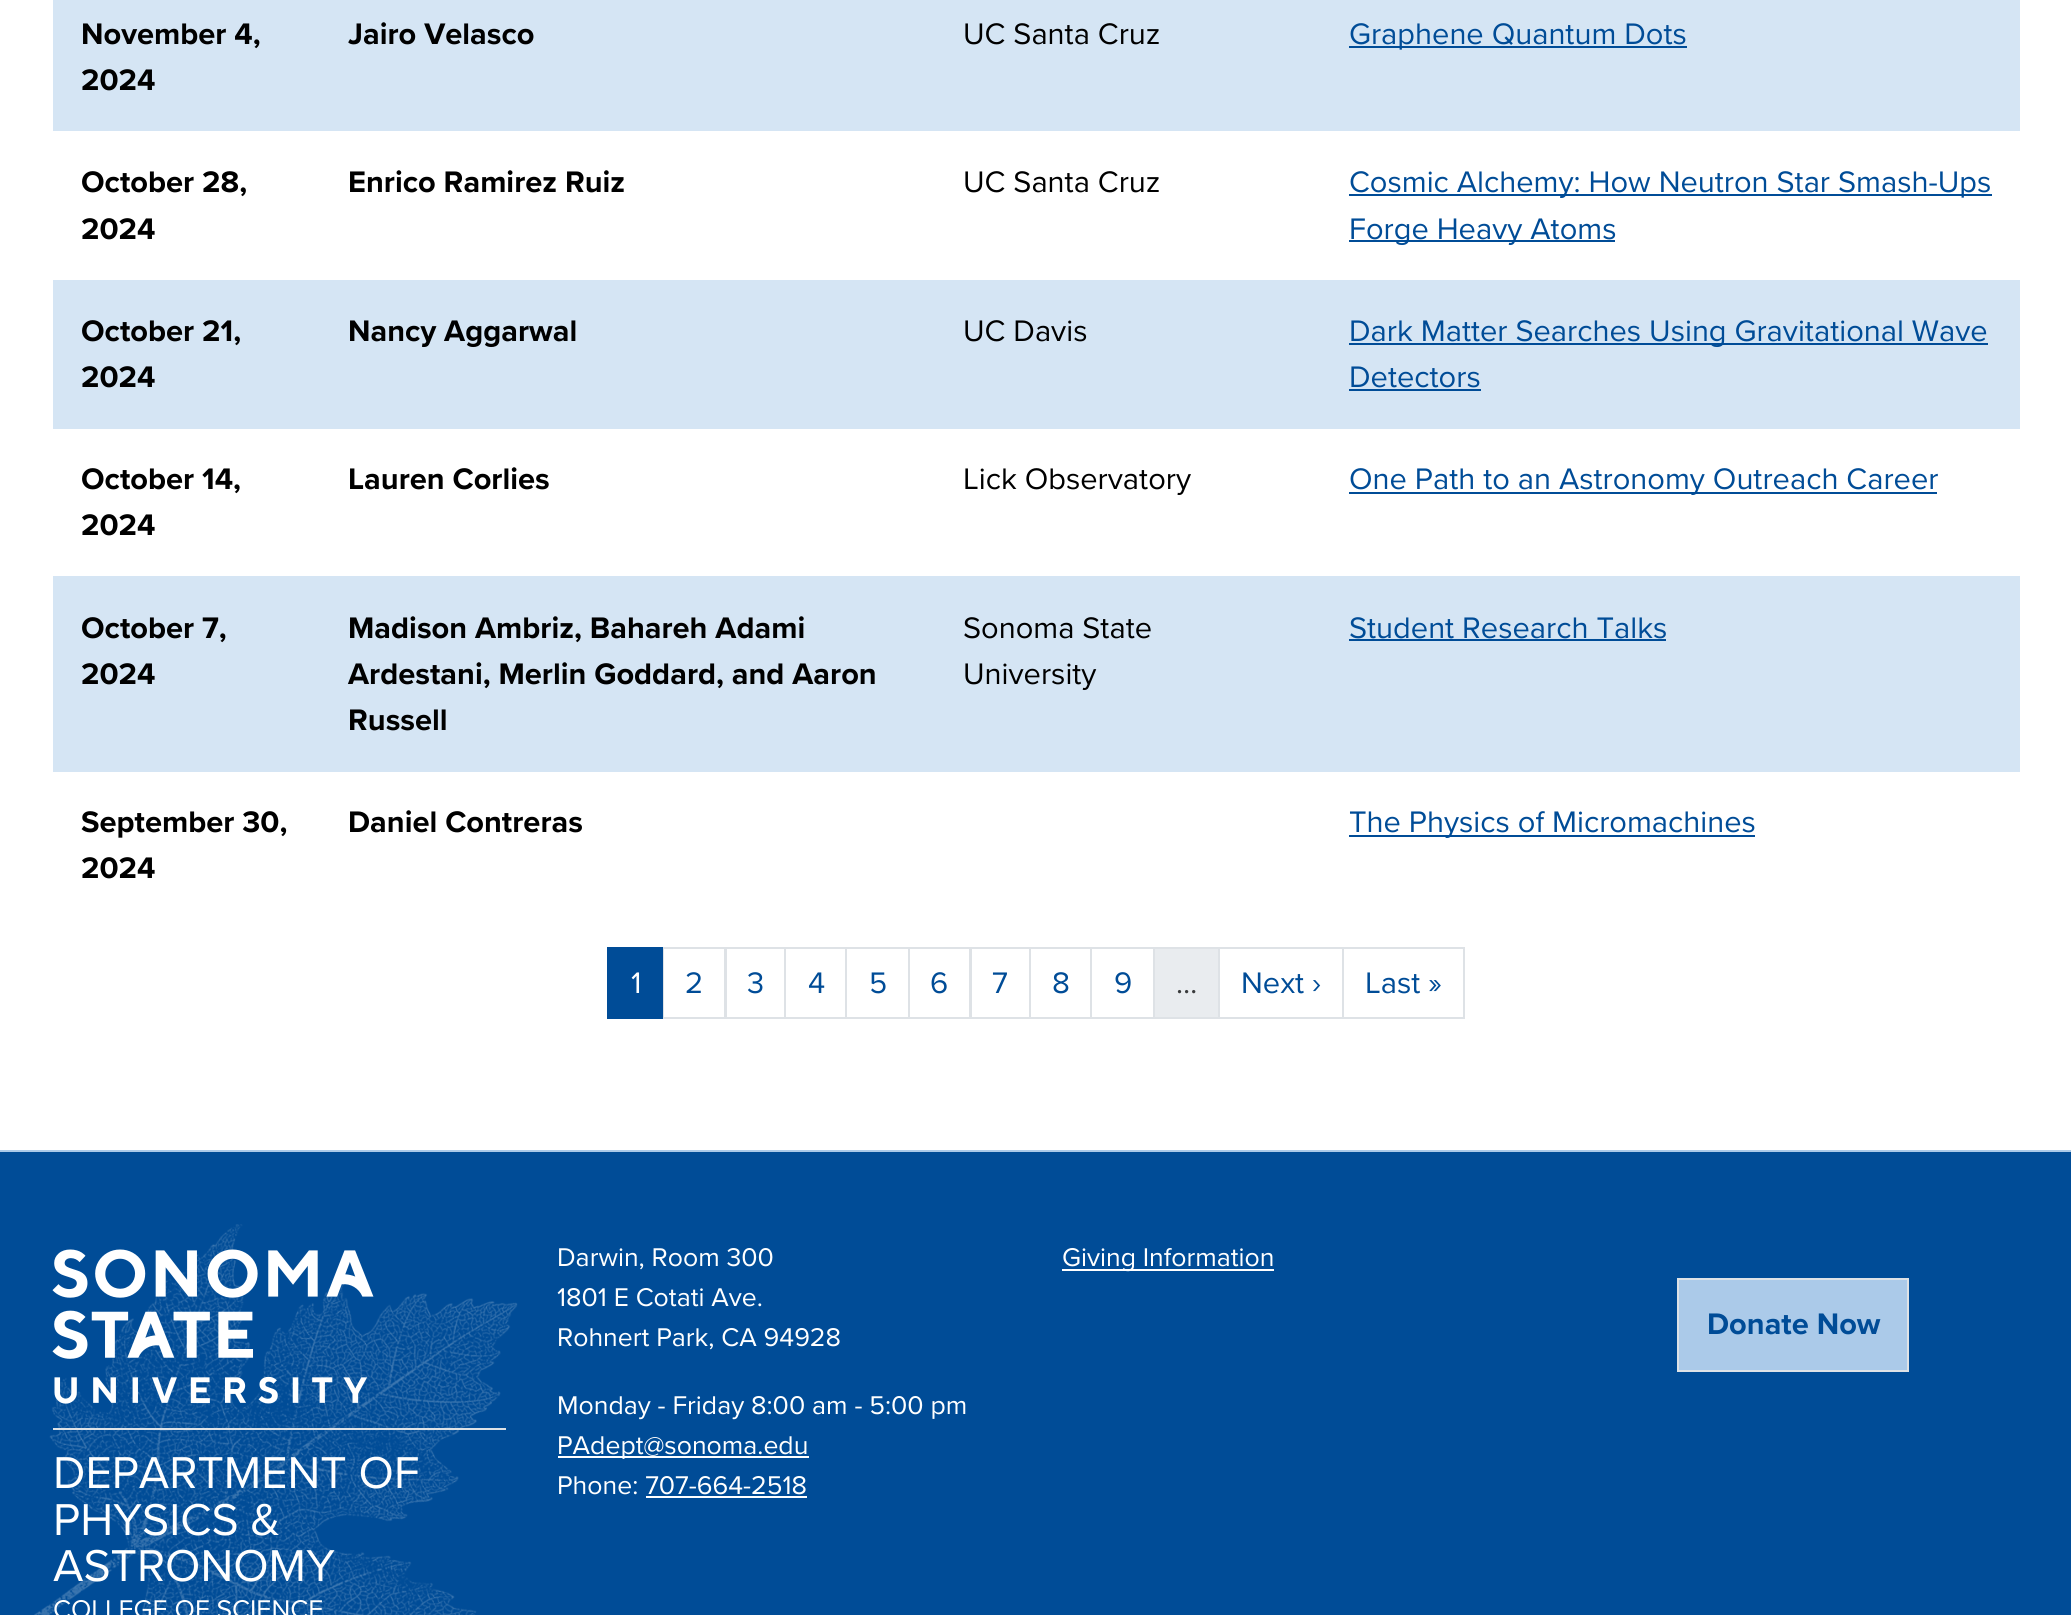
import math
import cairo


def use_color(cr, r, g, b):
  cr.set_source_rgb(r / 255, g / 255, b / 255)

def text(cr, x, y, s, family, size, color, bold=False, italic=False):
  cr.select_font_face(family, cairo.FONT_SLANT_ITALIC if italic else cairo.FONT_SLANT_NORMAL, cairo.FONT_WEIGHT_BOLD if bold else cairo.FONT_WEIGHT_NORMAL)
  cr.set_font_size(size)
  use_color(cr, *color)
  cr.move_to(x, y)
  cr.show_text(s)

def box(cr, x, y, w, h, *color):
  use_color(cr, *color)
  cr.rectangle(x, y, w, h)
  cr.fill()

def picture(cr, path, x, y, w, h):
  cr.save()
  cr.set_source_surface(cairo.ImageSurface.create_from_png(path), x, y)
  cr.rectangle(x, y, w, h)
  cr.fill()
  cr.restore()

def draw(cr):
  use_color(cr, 255, 255, 255)
  cr.paint()
  box(cr, 53, 0, 1967, 131, 213, 229, 244)
  box(cr, 1349, 46, 338, 2, 0, 76, 151)
  box(cr, 1349, 194, 643, 2, 0, 76, 151)
  box(cr, 1349, 240, 266, 2, 0, 76, 151)
  box(cr, 53, 280, 1967, 149, 213, 229, 244)
  box(cr, 1349, 343, 639, 2, 0, 76, 151)
  box(cr, 1349, 389, 132, 2, 0, 76, 151)
  box(cr, 1349, 492, 588, 2, 0, 76, 151)
  box(cr, 53, 576, 1967, 196, 213, 229, 244)
  box(cr, 1349, 639, 317, 2, 0, 76, 151)
  box(cr, 1349, 835, 406, 2, 0, 76, 151)
  cr.rectangle(663, 948, 62, 70)
  use_color(cr, 222, 226, 230)
  cr.stroke()
  box(cr, 607, 947, 56, 72, 0, 76, 151)
  cr.rectangle(726, 948, 59, 70)
  use_color(cr, 222, 226, 230)
  cr.stroke()
  cr.rectangle(785, 948, 61, 70)
  cr.stroke()
  cr.rectangle(846, 948, 63, 70)
  cr.stroke()
  cr.rectangle(909, 948, 61, 70)
  cr.stroke()
  cr.rectangle(971, 948, 59, 70)
  cr.stroke()
  cr.rectangle(1030, 948, 61, 70)
  cr.stroke()
  cr.rectangle(1091, 948, 63, 70)
  cr.stroke()
  use_color(cr, 233, 236, 239)
  cr.rectangle(1154, 948, 65, 70)
  cr.fill_preserve()
  use_color(cr, 222, 226, 230)
  cr.stroke()
  cr.rectangle(1219, 948, 124, 70)
  cr.stroke()
  cr.rectangle(1343, 948, 121, 70)
  cr.stroke()
  box(cr, 0, 1152, 2071, 463, 0, 76, 151)
  box(cr, 0, 1150, 2071, 2, 171, 202, 233)
  picture(cr, "img_01.png", 34, 1224, 484, 391)
  box(cr, 558, 1456, 251, 2, 255, 255, 255)
  box(cr, 646, 1496, 161, 2, 255, 255, 255)
  box(cr, 1062, 1269, 212, 2, 255, 255, 255)
  use_color(cr, 171, 202, 233)
  cr.rectangle(1678, 1279, 230, 92)
  cr.fill_preserve()
  use_color(cr, 222, 226, 230)
  cr.stroke()
  picture(cr, "img_02.png", 52, 1249, 322, 155)
  box(cr, 53, 1428, 453, 2, 222, 226, 230)
  text(cr, 81, 44, "November 4,", "Proxima Nova", 30.8, (0, 0, 0), bold=True)
  text(cr, 81, 90, "2024", "Proxima Nova", 30.8, (0, 0, 0), bold=True)
  text(cr, 348, 44, "Jairo Velasco", "Proxima Nova", 30.8, (0, 0, 0), bold=True)
  text(cr, 963, 44, "UC Santa Cruz", "Proxima Nova", 30.8, (0, 0, 0))
  text(cr, 1349, 44, "Graphene Quantum Dots", "Proxima Nova", 30.8, (0, 76, 151))
  text(cr, 81, 192, "October 28,", "Proxima Nova", 30.8, (0, 0, 0), bold=True)
  text(cr, 81, 239, "2024", "Proxima Nova", 30.8, (0, 0, 0), bold=True)
  text(cr, 348, 192, "Enrico Ramirez Ruiz", "Proxima Nova", 30.8, (0, 0, 0), bold=True)
  text(cr, 963, 192, "UC Santa Cruz", "Proxima Nova", 30.8, (0, 0, 0))
  text(cr, 1349, 192, "Cosmic Alchemy: How Neutron Star Smash-Ups", "Proxima Nova", 30.8, (0, 76, 151))
  text(cr, 1349, 239, "Forge Heavy Atoms", "Proxima Nova", 30.8, (0, 76, 151))
  text(cr, 81, 341, "October 21,", "Proxima Nova", 30.8, (0, 0, 0), bold=True)
  text(cr, 81, 387, "2024", "Proxima Nova", 30.8, (0, 0, 0), bold=True)
  text(cr, 348, 341, "Nancy Aggarwal", "Proxima Nova", 30.8, (0, 0, 0), bold=True)
  text(cr, 963, 341, "UC Davis", "Proxima Nova", 30.8, (0, 0, 0))
  text(cr, 1349, 341, "Dark Matter Searches Using Gravitational Wave", "Proxima Nova", 30.8, (0, 76, 151))
  text(cr, 1349, 387, "Detectors", "Proxima Nova", 30.8, (0, 76, 151))
  text(cr, 81, 489, "October 14,", "Proxima Nova", 30.8, (0, 0, 0), bold=True)
  text(cr, 81, 535, "2024", "Proxima Nova", 30.8, (0, 0, 0), bold=True)
  text(cr, 348, 489, "Lauren Corlies", "Proxima Nova", 30.8, (0, 0, 0), bold=True)
  text(cr, 963, 489, "Lick Observatory", "Proxima Nova", 30.8, (0, 0, 0))
  text(cr, 1349, 489, "One Path to an Astronomy Outreach Career", "Proxima Nova", 30.8, (0, 76, 151))
  text(cr, 81, 638, "October 7,", "Proxima Nova", 30.8, (0, 0, 0), bold=True)
  text(cr, 81, 684, "2024", "Proxima Nova", 30.8, (0, 0, 0), bold=True)
  text(cr, 348, 638, "Madison Ambriz, Bahareh Adami", "Proxima Nova", 30.8, (0, 0, 0), bold=True)
  text(cr, 348, 684, "Ardestani, Merlin Goddard, and Aaron", "Proxima Nova", 30.8, (0, 0, 0), bold=True)
  text(cr, 348, 730, "Russell", "Proxima Nova", 30.8, (0, 0, 0), bold=True)
  text(cr, 963, 638, "Sonoma State", "Proxima Nova", 30.8, (0, 0, 0))
  text(cr, 963, 684, "University", "Proxima Nova", 30.8, (0, 0, 0))
  text(cr, 1349, 638, "Student Research Talks", "Proxima Nova", 30.8, (0, 76, 151))
  text(cr, 81, 832, "September 30,", "Proxima Nova", 30.8, (0, 0, 0), bold=True)
  text(cr, 81, 878, "2024", "Proxima Nova", 30.8, (0, 0, 0), bold=True)
  text(cr, 348, 832, "Daniel Contreras", "Proxima Nova", 30.8, (0, 0, 0), bold=True)
  text(cr, 1349, 832, "The Physics of Micromachines", "Proxima Nova", 30.8, (0, 76, 151))
  text(cr, 631, 993, "1", "Proxima Nova", 30.8, (255, 255, 255))
  text(cr, 685, 993, "2", "Proxima Nova", 30.8, (0, 76, 151))
  text(cr, 747, 993, "3", "Proxima Nova", 30.8, (0, 76, 151))
  text(cr, 808, 993, "4", "Proxima Nova", 30.8, (0, 76, 151))
  text(cr, 869, 993, "5", "Proxima Nova", 30.8, (0, 76, 151))
  text(cr, 930, 993, "6", "Proxima Nova", 30.8, (0, 76, 151))
  text(cr, 992, 993, "7", "Proxima Nova", 30.8, (0, 76, 151))
  text(cr, 1052, 993, "8", "Proxima Nova", 30.8, (0, 76, 151))
  text(cr, 1114, 993, "9", "Proxima Nova", 30.8, (0, 76, 151))
  text(cr, 1176, 993, "…", "Proxima Nova", 30.8, (58, 59, 60))
  text(cr, 1241, 993, "Next ›", "Proxima Nova", 30.8, (0, 76, 151))
  text(cr, 1365, 993, "Last »", "Proxima Nova", 30.8, (0, 76, 151))
  text(cr, 557, 1266, "Darwin, Room 300", "Proxima Nova", 26.6, (255, 255, 255))
  text(cr, 557, 1306, "1801 E Cotati Ave.", "Proxima Nova", 26.6, (255, 255, 255))
  text(cr, 557, 1346, "Rohnert Park, CA 94928", "Proxima Nova", 26.6, (255, 255, 255))
  text(cr, 557, 1414, "Monday - Friday 8:00 am - 5:00 pm", "Proxima Nova", 26.6, (255, 255, 255))
  text(cr, 557, 1454, "PAdept@sonoma.edu", "Proxima Nova", 26.6, (255, 255, 255))
  text(cr, 557, 1494, "Phone: 707-664-2518", "Proxima Nova", 26.6, (255, 255, 255))
  text(cr, 1062, 1266, "Giving Information", "Proxima Nova", 26.6, (255, 255, 255))
  text(cr, 1707, 1334, "Donate Now", "Proxima Nova", 30.8, (0, 76, 151), bold=True)
  text(cr, 53, 1488, "DEPARTMENT OF", "Proxima Nova", 46.25, (255, 255, 255))
  text(cr, 53, 1535, "PHYSICS &", "Proxima Nova", 46.25, (255, 255, 255))
  text(cr, 53, 1581, "ASTRONOMY", "Proxima Nova", 46.25, (255, 255, 255))
  text(cr, 53, 1618, "COLLEGE OF SCIENCE", "Proxima Nova", 26.6, (255, 255, 255))


surface = cairo.ImageSurface(cairo.FORMAT_RGB24, 2071, 1615)
cr = cairo.Context(surface)
options = cairo.FontOptions()
options.set_hint_metrics(cairo.HINT_METRICS_OFF)
options.set_hint_style(cairo.HINT_STYLE_NONE)
cr.set_font_options(options)
cr.set_miter_limit(4)
draw(cr)
surface.write_to_png("out.png")
